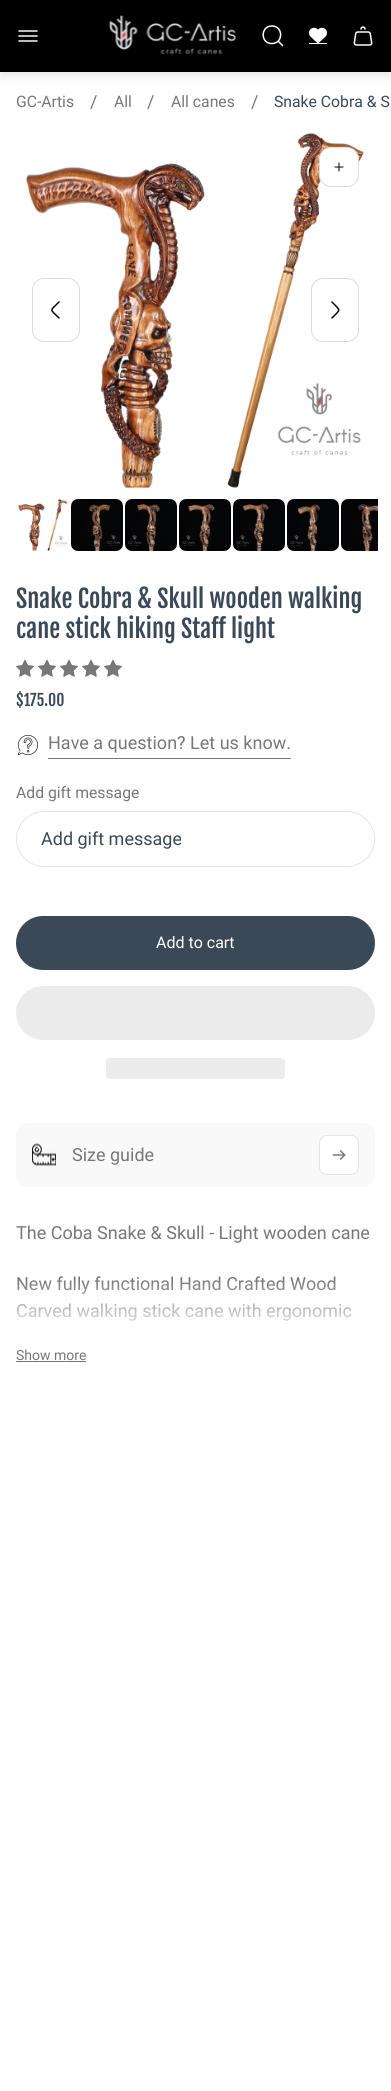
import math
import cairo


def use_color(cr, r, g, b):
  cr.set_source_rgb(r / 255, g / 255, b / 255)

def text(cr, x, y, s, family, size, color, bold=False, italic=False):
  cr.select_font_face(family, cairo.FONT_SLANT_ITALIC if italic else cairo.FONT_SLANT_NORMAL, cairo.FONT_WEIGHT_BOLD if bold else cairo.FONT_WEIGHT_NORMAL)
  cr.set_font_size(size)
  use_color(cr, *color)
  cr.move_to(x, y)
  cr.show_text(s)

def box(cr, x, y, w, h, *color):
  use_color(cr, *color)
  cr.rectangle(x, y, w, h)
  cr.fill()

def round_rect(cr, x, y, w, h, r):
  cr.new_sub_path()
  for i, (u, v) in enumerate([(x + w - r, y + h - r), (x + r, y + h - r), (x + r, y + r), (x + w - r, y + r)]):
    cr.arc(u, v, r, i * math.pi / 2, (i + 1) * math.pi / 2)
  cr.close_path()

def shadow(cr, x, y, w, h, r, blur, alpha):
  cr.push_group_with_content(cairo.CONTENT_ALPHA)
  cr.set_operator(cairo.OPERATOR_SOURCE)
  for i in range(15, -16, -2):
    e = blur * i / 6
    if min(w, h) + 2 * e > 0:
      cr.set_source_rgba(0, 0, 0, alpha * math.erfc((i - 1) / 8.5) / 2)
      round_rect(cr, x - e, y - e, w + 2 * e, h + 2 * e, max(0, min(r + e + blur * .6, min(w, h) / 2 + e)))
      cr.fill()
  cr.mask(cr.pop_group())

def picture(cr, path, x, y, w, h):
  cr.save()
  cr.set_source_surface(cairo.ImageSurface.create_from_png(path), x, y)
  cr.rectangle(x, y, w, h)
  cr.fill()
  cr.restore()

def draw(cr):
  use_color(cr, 255, 255, 255)
  cr.paint()
  use_color(cr, 0, 0, 0)
  shadow(cr, 0, 4, 391, 72, 0, 5.5, 0.1)
  box(cr, 0, 0, 391, 72, 0, 0, 0)
  picture(cr, "img_01.png", 18, 30, 20, 12)
  picture(cr, "img_02.png", 109, 15, 128, 40)
  cr.new_path()
  cr.move_to(278, 41)
  cr.line_to(283, 46)
  cr.move_to(272, 26)
  cr.curve_to(283.5, 26, 283.5, 43.5, 272, 43.5)
  cr.curve_to(260.5, 44, 260, 26, 272, 26)
  cr.close_path()
  use_color(cr, 255, 255, 255)
  cr.set_line_width(1.5)
  cr.stroke()
  picture(cr, "img_03.png", 309, 27, 18, 16)
  box(cr, 309, 43, 18, 1, 255, 255, 255)
  picture(cr, "img_04.png", 353, 26, 20, 20)
  picture(cr, "img_05.png", 26, 133, 338, 355)
  round_rect(cr, 319.5, 147.5, 39, 39, 11.5)
  cr.fill_preserve()
  use_color(cr, 220, 220, 220)
  cr.set_line_width(1)
  cr.stroke()
  picture(cr, "img_06.png", 334, 162, 10, 10)
  round_rect(cr, 32.5, 278.5, 47, 63, 11.5)
  cr.stroke()
  cr.new_path()
  cr.move_to(59, 318)
  cr.curve_to(49.5, 308.5, 49.5, 311.5, 59, 302)
  use_color(cr, 0, 0, 0)
  cr.set_line_width(1.5)
  cr.set_line_cap(cairo.LINE_CAP_ROUND)
  cr.set_line_join(cairo.LINE_JOIN_ROUND)
  cr.stroke()
  round_rect(cr, 311.5, 278.5, 47, 63, 11.5)
  use_color(cr, 220, 220, 220)
  cr.set_line_width(1)
  cr.set_line_cap(cairo.LINE_CAP_BUTT)
  cr.set_line_join(cairo.LINE_JOIN_MITER)
  cr.stroke()
  cr.new_path()
  cr.move_to(332, 318)
  cr.curve_to(341, 308.5, 341, 311.5, 332, 302)
  use_color(cr, 0, 0, 0)
  cr.set_line_width(1.5)
  cr.set_line_cap(cairo.LINE_CAP_ROUND)
  cr.set_line_join(cairo.LINE_JOIN_ROUND)
  cr.stroke()
  picture(cr, "img_07.png", 17, 499, 51, 52)
  picture(cr, "img_08.png", 71, 499, 52, 52)
  picture(cr, "img_09.png", 125, 499, 52, 52)
  picture(cr, "img_10.png", 179, 499, 52, 52)
  picture(cr, "img_11.png", 233, 499, 52, 52)
  picture(cr, "img_12.png", 287, 499, 52, 52)
  picture(cr, "img_13.png", 341, 499, 37, 52)
  picture(cr, "img_14.png", 16, 659, 18, 18)
  picture(cr, "img_14.png", 38, 659, 18, 18)
  picture(cr, "img_14.png", 60, 659, 18, 18)
  picture(cr, "img_14.png", 82, 659, 18, 18)
  picture(cr, "img_14.png", 104, 659, 18, 18)
  picture(cr, "img_15.png", 18, 735, 20, 20)
  box(cr, 48, 758, 243, 1, 119, 119, 119)
  round_rect(cr, 16.5, 811.5, 358, 55, 27.5)
  use_color(cr, 229, 229, 229)
  cr.set_line_width(1)
  cr.set_line_cap(cairo.LINE_CAP_BUTT)
  cr.set_line_join(cairo.LINE_JOIN_MITER)
  cr.stroke()
  use_color(cr, 59, 72, 88)
  round_rect(cr, 16, 916, 359, 54, 27)
  cr.fill()
  use_color(cr, 235, 235, 235)
  round_rect(cr, 16, 986, 359, 54, 27)
  cr.fill()
  round_rect(cr, 106, 1058, 179, 21, 4)
  cr.fill()
  use_color(cr, 249, 249, 249)
  round_rect(cr, 16, 1123, 359, 64, 12)
  cr.fill()
  picture(cr, "img_16.png", 32, 1143, 24, 23)
  use_color(cr, 255, 255, 255)
  round_rect(cr, 319.5, 1135.5, 39, 39, 7.5)
  cr.fill_preserve()
  use_color(cr, 229, 229, 229)
  cr.stroke()
  picture(cr, "img_17.png", 332, 1150, 14, 10)
  box(cr, 16, 1361, 70, 1, 119, 119, 119)
  text(cr, 16, 107, "GC-Artis", "Roboto", 15.75, (119, 119, 119))
  text(cr, 90, 108, "/", "Roboto", 18, (119, 119, 119))
  text(cr, 114, 107, "All", "Roboto", 15.75, (119, 119, 119))
  text(cr, 147, 108, "/", "Roboto", 18, (119, 119, 119))
  text(cr, 171, 107, "All canes", "Roboto", 15.75, (119, 119, 119))
  text(cr, 251, 108, "/", "Roboto", 18, (119, 119, 119))
  text(cr, 274, 107, "Snake Cobra & S", "Roboto", 15.75, (59, 72, 88))
  text(cr, 16, 608, "Snake Cobra & Skull wooden walking", "Fjalla One", 24.5, (59, 72, 88))
  text(cr, 16, 638, "cane stick hiking Staff light", "Fjalla One", 24.5, (59, 72, 88))
  text(cr, 16, 706, "$175.00", "Fjalla One", 15.75, (59, 72, 88))
  text(cr, 48, 749, "Have a question? Let us know.", "Roboto", 18, (119, 119, 119))
  text(cr, 16, 798, "Add gift message", "Roboto", 15.75, (119, 119, 119))
  text(cr, 41, 845, "Add gift message", "Roboto", 18, (59, 72, 88))
  text(cr, 156, 948, "Add to cart", "Roboto", 16, (255, 255, 255))
  text(cr, 72, 1161, "Size guide", "Roboto", 18, (119, 119, 119))
  text(cr, 16, 1239, "The Coba Snake & Skull - Light wooden cane", "Roboto", 18, (119, 119, 119))
  text(cr, 16, 1290, "New fully functional Hand Crafted Wood", "Roboto", 18, (119, 119, 119))
  text(cr, 16, 1317, "Carved walking stick cane with ergonomic", "Roboto", 18, (119, 119, 119))
  gradient = cairo.LinearGradient(196, 1279, 196, 1339)
  gradient.add_color_stop_rgba(0, 1, 1, 1, 0)
  gradient.add_color_stop_rgba(1, 1, 1, 1, 1)
  cr.set_source(gradient)
  cr.rectangle(17, 1280, 335, 41)
  cr.fill()
  text(cr, 16, 1360, "Show more", "Roboto", 14, (119, 119, 119))


surface = cairo.ImageSurface(cairo.FORMAT_RGB24, 391, 2091)
cr = cairo.Context(surface)
options = cairo.FontOptions()
options.set_hint_metrics(cairo.HINT_METRICS_OFF)
options.set_hint_style(cairo.HINT_STYLE_NONE)
cr.set_font_options(options)
cr.set_miter_limit(4)
draw(cr)
surface.write_to_png("out.png")
